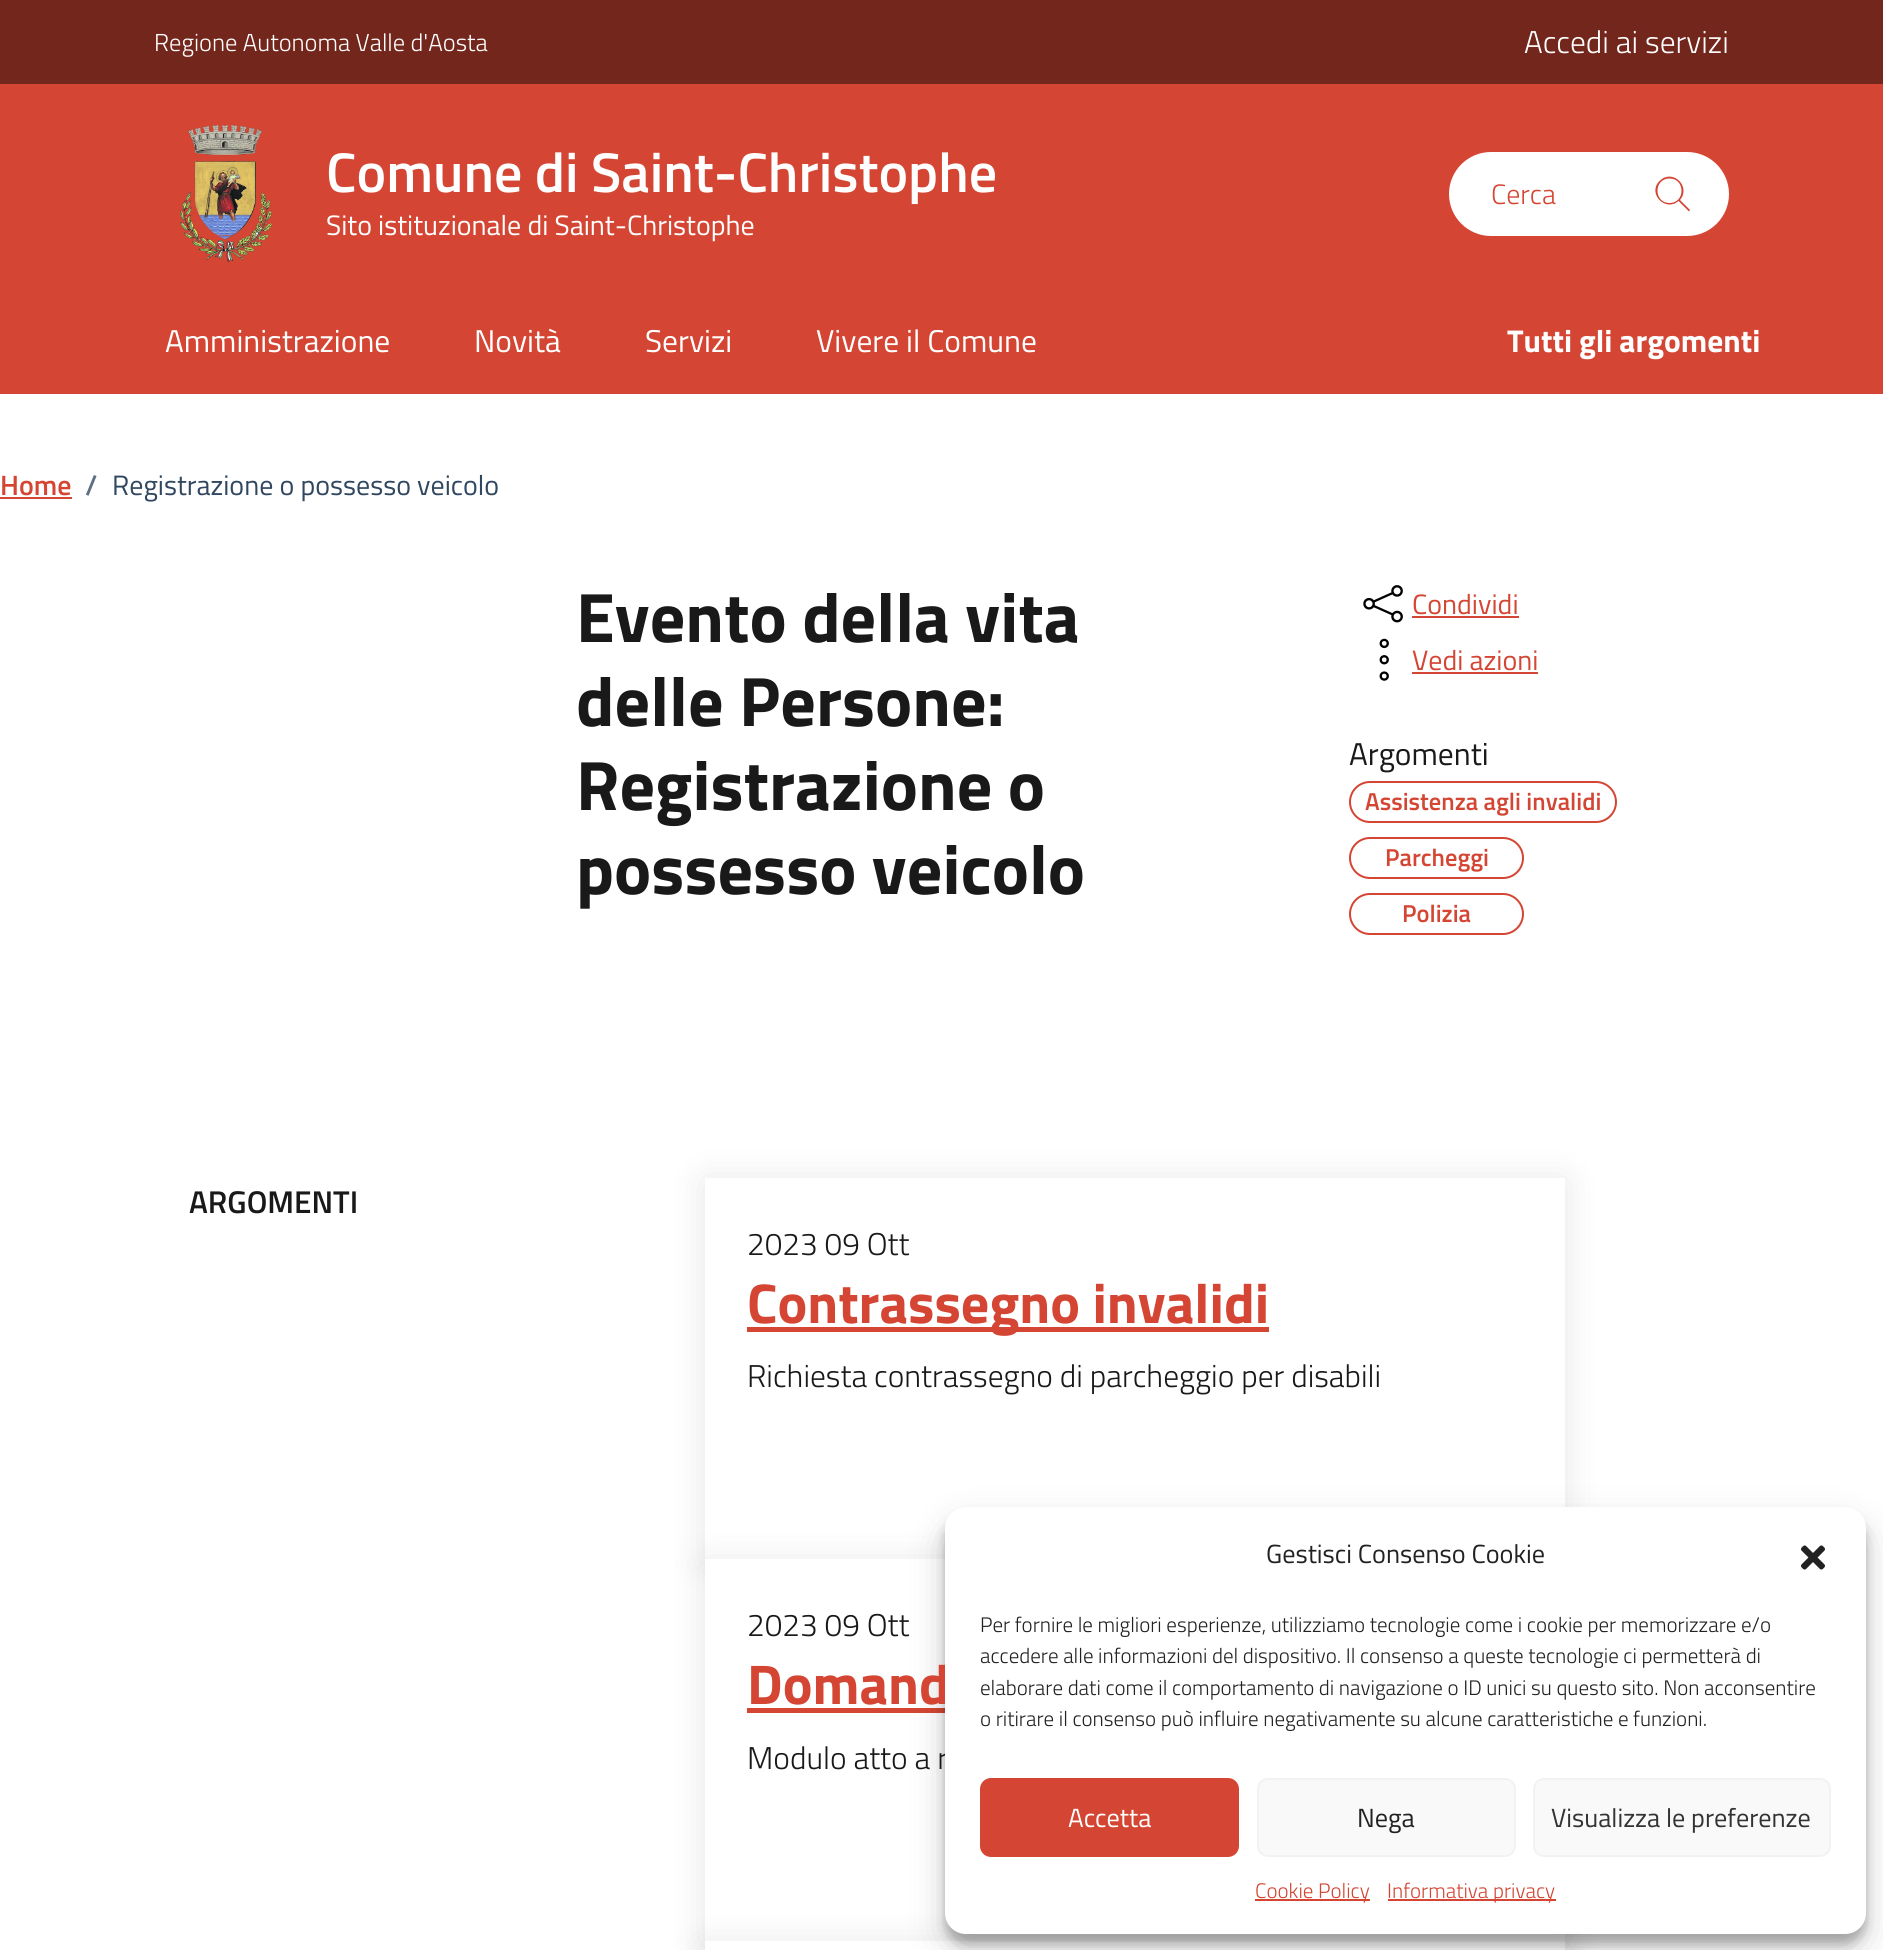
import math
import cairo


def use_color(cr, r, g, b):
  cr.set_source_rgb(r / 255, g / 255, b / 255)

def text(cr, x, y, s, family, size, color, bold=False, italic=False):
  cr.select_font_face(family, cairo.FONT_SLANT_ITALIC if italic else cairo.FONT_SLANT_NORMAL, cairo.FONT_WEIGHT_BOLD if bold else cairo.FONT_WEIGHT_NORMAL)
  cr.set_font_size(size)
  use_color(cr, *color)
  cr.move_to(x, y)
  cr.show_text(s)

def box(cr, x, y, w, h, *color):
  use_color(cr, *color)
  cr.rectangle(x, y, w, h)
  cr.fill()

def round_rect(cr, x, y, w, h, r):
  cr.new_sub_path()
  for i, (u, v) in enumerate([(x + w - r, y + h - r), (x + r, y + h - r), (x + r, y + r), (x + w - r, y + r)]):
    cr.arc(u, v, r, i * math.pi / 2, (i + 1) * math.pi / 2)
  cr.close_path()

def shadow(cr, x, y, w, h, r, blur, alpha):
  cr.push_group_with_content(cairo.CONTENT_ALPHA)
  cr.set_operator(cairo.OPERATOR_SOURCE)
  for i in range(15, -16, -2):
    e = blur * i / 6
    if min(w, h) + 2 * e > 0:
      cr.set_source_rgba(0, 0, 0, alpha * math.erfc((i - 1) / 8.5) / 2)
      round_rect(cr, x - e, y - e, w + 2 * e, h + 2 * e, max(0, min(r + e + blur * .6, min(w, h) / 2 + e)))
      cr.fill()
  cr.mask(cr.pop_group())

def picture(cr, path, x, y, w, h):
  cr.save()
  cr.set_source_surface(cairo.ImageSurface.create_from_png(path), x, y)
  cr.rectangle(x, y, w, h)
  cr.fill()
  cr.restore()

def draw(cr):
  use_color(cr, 255, 255, 255)
  cr.paint()
  box(cr, 0, 0, 1883, 84, 115, 38, 28)
  box(cr, 0, 84, 1883, 310, 212, 70, 51)
  picture(cr, "img_01.png", 180, 124, 92, 139)
  use_color(cr, 255, 255, 255)
  round_rect(cr, 1449, 152, 280, 84, 42)
  cr.fill()
  use_color(cr, 212, 70, 51)
  cr.new_path()
  cr.move_to(1690, 210)
  cr.line_to(1680, 200)
  cr.curve_to(1691.5, 186.5, 1672.5, 168, 1659.5, 181)
  cr.curve_to(1647, 193.5, 1665.5, 212.5, 1678.5, 201)
  cr.line_to(1689, 211.5)
  cr.close_path()
  cr.move_to(1669.5, 203)
  cr.curve_to(1653.5, 203, 1653.5, 178.5, 1669.5, 178.5)
  cr.curve_to(1685.5, 178.5, 1685.5, 203, 1669.5, 203)
  cr.close_path()
  cr.fill()
  box(cr, 0, 497, 72, 2, 212, 70, 51)
  picture(cr, "img_02.png", 1363, 585, 40, 38)
  box(cr, 1412, 616, 107, 2, 212, 70, 51)
  picture(cr, "img_03.png", 1379, 638, 10, 43)
  box(cr, 1412, 672, 126, 2, 212, 70, 51)
  round_rect(cr, 1350, 782, 266, 40, 20)
  cr.stroke()
  round_rect(cr, 1350, 838, 173, 40, 20)
  cr.stroke()
  round_rect(cr, 1350, 894, 173, 40, 20)
  cr.stroke()
  use_color(cr, 0, 0, 0)
  shadow(cr, 705, 1181, 860, 382, 0, 17.5, 0.1)
  box(cr, 705, 1178, 860, 381, 255, 255, 255)
  box(cr, 747, 1327, 522, 5, 212, 70, 51)
  use_color(cr, 0, 0, 0)
  shadow(cr, 705, 1563, 860, 381, 0, 17.5, 0.1)
  box(cr, 705, 1559, 860, 382, 255, 255, 255)
  box(cr, 747, 1708, 198, 5, 212, 70, 51)
  use_color(cr, 0, 0, 0)
  shadow(cr, 705, 1944, 860, 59, 0, 17.5, 0.1)
  box(cr, 705, 1941, 860, 9, 255, 255, 255)
  use_color(cr, 0, 0, 0)
  shadow(cr, 945, 1517, 921, 427, 21, 5, 0.23)
  shadow(cr, 945, 1524, 921, 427, 21, 17.5, 0.19)
  text(cr, 154, 51, "Regione Autonoma Valle d'Aosta", "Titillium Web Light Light", 24.5, (255, 255, 255))
  text(cr, 1524, 53, "Accedi ai servizi", "Titillium Web Light Light", 31.5, (255, 255, 255))
  text(cr, 326, 192, "Comune di Saint-Christophe", "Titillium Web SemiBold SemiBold", 56, (255, 255, 255))
  text(cr, 326, 235, "Sito istituzionale di Saint-Christophe", "Titillium Web", 28, (255, 255, 255))
  text(cr, 1491, 204, "Cerca", "Titillium Web Light Light", 28, (212, 70, 51))
  text(cr, 165, 352, "Amministrazione", "Titillium Web", 31.5, (255, 255, 255))
  text(cr, 474, 352, "Novità", "Titillium Web", 31.5, (255, 255, 255))
  text(cr, 645, 352, "Servizi", "Titillium Web", 31.5, (255, 255, 255))
  text(cr, 816, 352, "Vivere il Comune", "Titillium Web", 31.5, (255, 255, 255))
  text(cr, 1507, 352, "Tutti gli argomenti", "Titillium Web", 31.5, (255, 255, 255), bold=True)
  text(cr, 0, 495, "Home", "Titillium Web SemiBold SemiBold", 28, (212, 70, 51))
  text(cr, 85, 495, "/", "Titillium Web SemiBold SemiBold", 28, (93, 112, 131))
  text(cr, 112, 495, "Registrazione o possesso veicolo", "Titillium Web", 28, (48, 71, 95))
  text(cr, 576, 642, "Evento della vita", "Titillium Web", 70, (25, 25, 25), bold=True)
  text(cr, 576, 726, "delle Persone:", "Titillium Web", 70, (25, 25, 25), bold=True)
  text(cr, 576, 810, "Registrazione o", "Titillium Web", 70, (25, 25, 25), bold=True)
  text(cr, 576, 894, "possesso veicolo", "Titillium Web", 70, (25, 25, 25), bold=True)
  text(cr, 1412, 614, "Condividi", "Titillium Web", 28, (212, 70, 51))
  text(cr, 1412, 670, "Vedi azioni", "Titillium Web", 28, (212, 70, 51))
  text(cr, 1349, 765, "Argomenti", "Titillium Web", 31.5, (25, 25, 25))
  text(cr, 1365, 810, "Assistenza agli invalidi", "Titillium Web SemiBold SemiBold", 24.5, (212, 70, 51))
  text(cr, 1385, 866, "Parcheggi", "Titillium Web SemiBold SemiBold", 24.5, (212, 70, 51))
  text(cr, 1402, 922, "Polizia", "Titillium Web SemiBold SemiBold", 24.5, (212, 70, 51))
  text(cr, 189, 1213, "ARGOMENTI", "Titillium Web SemiBold SemiBold", 31.5, (25, 25, 25))
  text(cr, 747, 1255, "2023 09 Ott", "Titillium Web Light Light", 31.5, (25, 25, 25))
  text(cr, 747, 1323, "Contrassegno invalidi", "Titillium Web", 56, (212, 70, 51), bold=True)
  text(cr, 747, 1387, "Richiesta contrassegno di parcheggio per disabili", "Titillium Web Light Light", 31.5, (25, 25, 25))
  text(cr, 747, 1636, "2023 09 Ott", "Titillium Web Light Light", 31.5, (25, 25, 25))
  text(cr, 747, 1704, "Domand", "Titillium Web", 56, (212, 70, 51), bold=True)
  text(cr, 747, 1769, "Modulo atto a r", "Titillium Web Light Light", 31.5, (25, 25, 25))
  use_color(cr, 255, 255, 255)
  round_rect(cr, 945, 1507, 921, 427, 21)
  cr.fill()
  text(cr, 1266, 1563, "Gestisci Consenso Cookie", "Titillium Web", 26.25, (34, 34, 34))
  picture(cr, "img_04.png", 1801, 1545, 24, 25)
  text(cr, 980, 1632, "Per fornire le migliori esperienze, utilizziamo tecnologie come i cookie per memorizzare e/o", "Titillium Web Light Light", 21, (34, 34, 34))
  text(cr, 980, 1663, "accedere alle informazioni del dispositivo. Il consenso a queste tecnologie ci permetterà di", "Titillium Web Light Light", 21, (34, 34, 34))
  text(cr, 980, 1695, "elaborare dati come il comportamento di navigazione o ID unici su questo sito. Non acconsentire", "Titillium Web Light Light", 21, (34, 34, 34))
  text(cr, 980, 1726, "o ritirare il consenso può influire negativamente su alcune caratteristiche e funzioni.", "Titillium Web Light Light", 21, (34, 34, 34))
  use_color(cr, 212, 70, 51)
  round_rect(cr, 981, 1779, 257, 77, 10)
  cr.fill_preserve()
  cr.stroke()
  text(cr, 1068, 1827, "Accetta", "Titillium Web", 26.25, (255, 255, 255))
  use_color(cr, 249, 249, 249)
  round_rect(cr, 1258, 1779, 257, 77, 10)
  cr.fill_preserve()
  use_color(cr, 242, 242, 242)
  cr.stroke()
  text(cr, 1357, 1827, "Nega", "Titillium Web", 26.25, (34, 34, 34))
  use_color(cr, 249, 249, 249)
  round_rect(cr, 1534, 1779, 296, 77, 10)
  cr.fill_preserve()
  use_color(cr, 242, 242, 242)
  cr.stroke()
  text(cr, 1551, 1827, "Visualizza le preferenze", "Titillium Web", 26.25, (51, 51, 51))
  box(cr, 1255, 1899, 115, 2, 212, 70, 51)
  text(cr, 1255, 1898, "Cookie Policy", "Titillium Web Light Light", 21, (212, 70, 51))
  box(cr, 1388, 1899, 168, 2, 212, 70, 51)
  text(cr, 1387, 1898, "Informativa privacy", "Titillium Web Light Light", 21, (212, 70, 51))


surface = cairo.ImageSurface(cairo.FORMAT_RGB24, 1883, 1950)
cr = cairo.Context(surface)
options = cairo.FontOptions()
options.set_hint_metrics(cairo.HINT_METRICS_OFF)
options.set_hint_style(cairo.HINT_STYLE_NONE)
cr.set_font_options(options)
cr.set_miter_limit(4)
draw(cr)
surface.write_to_png("out.png")
